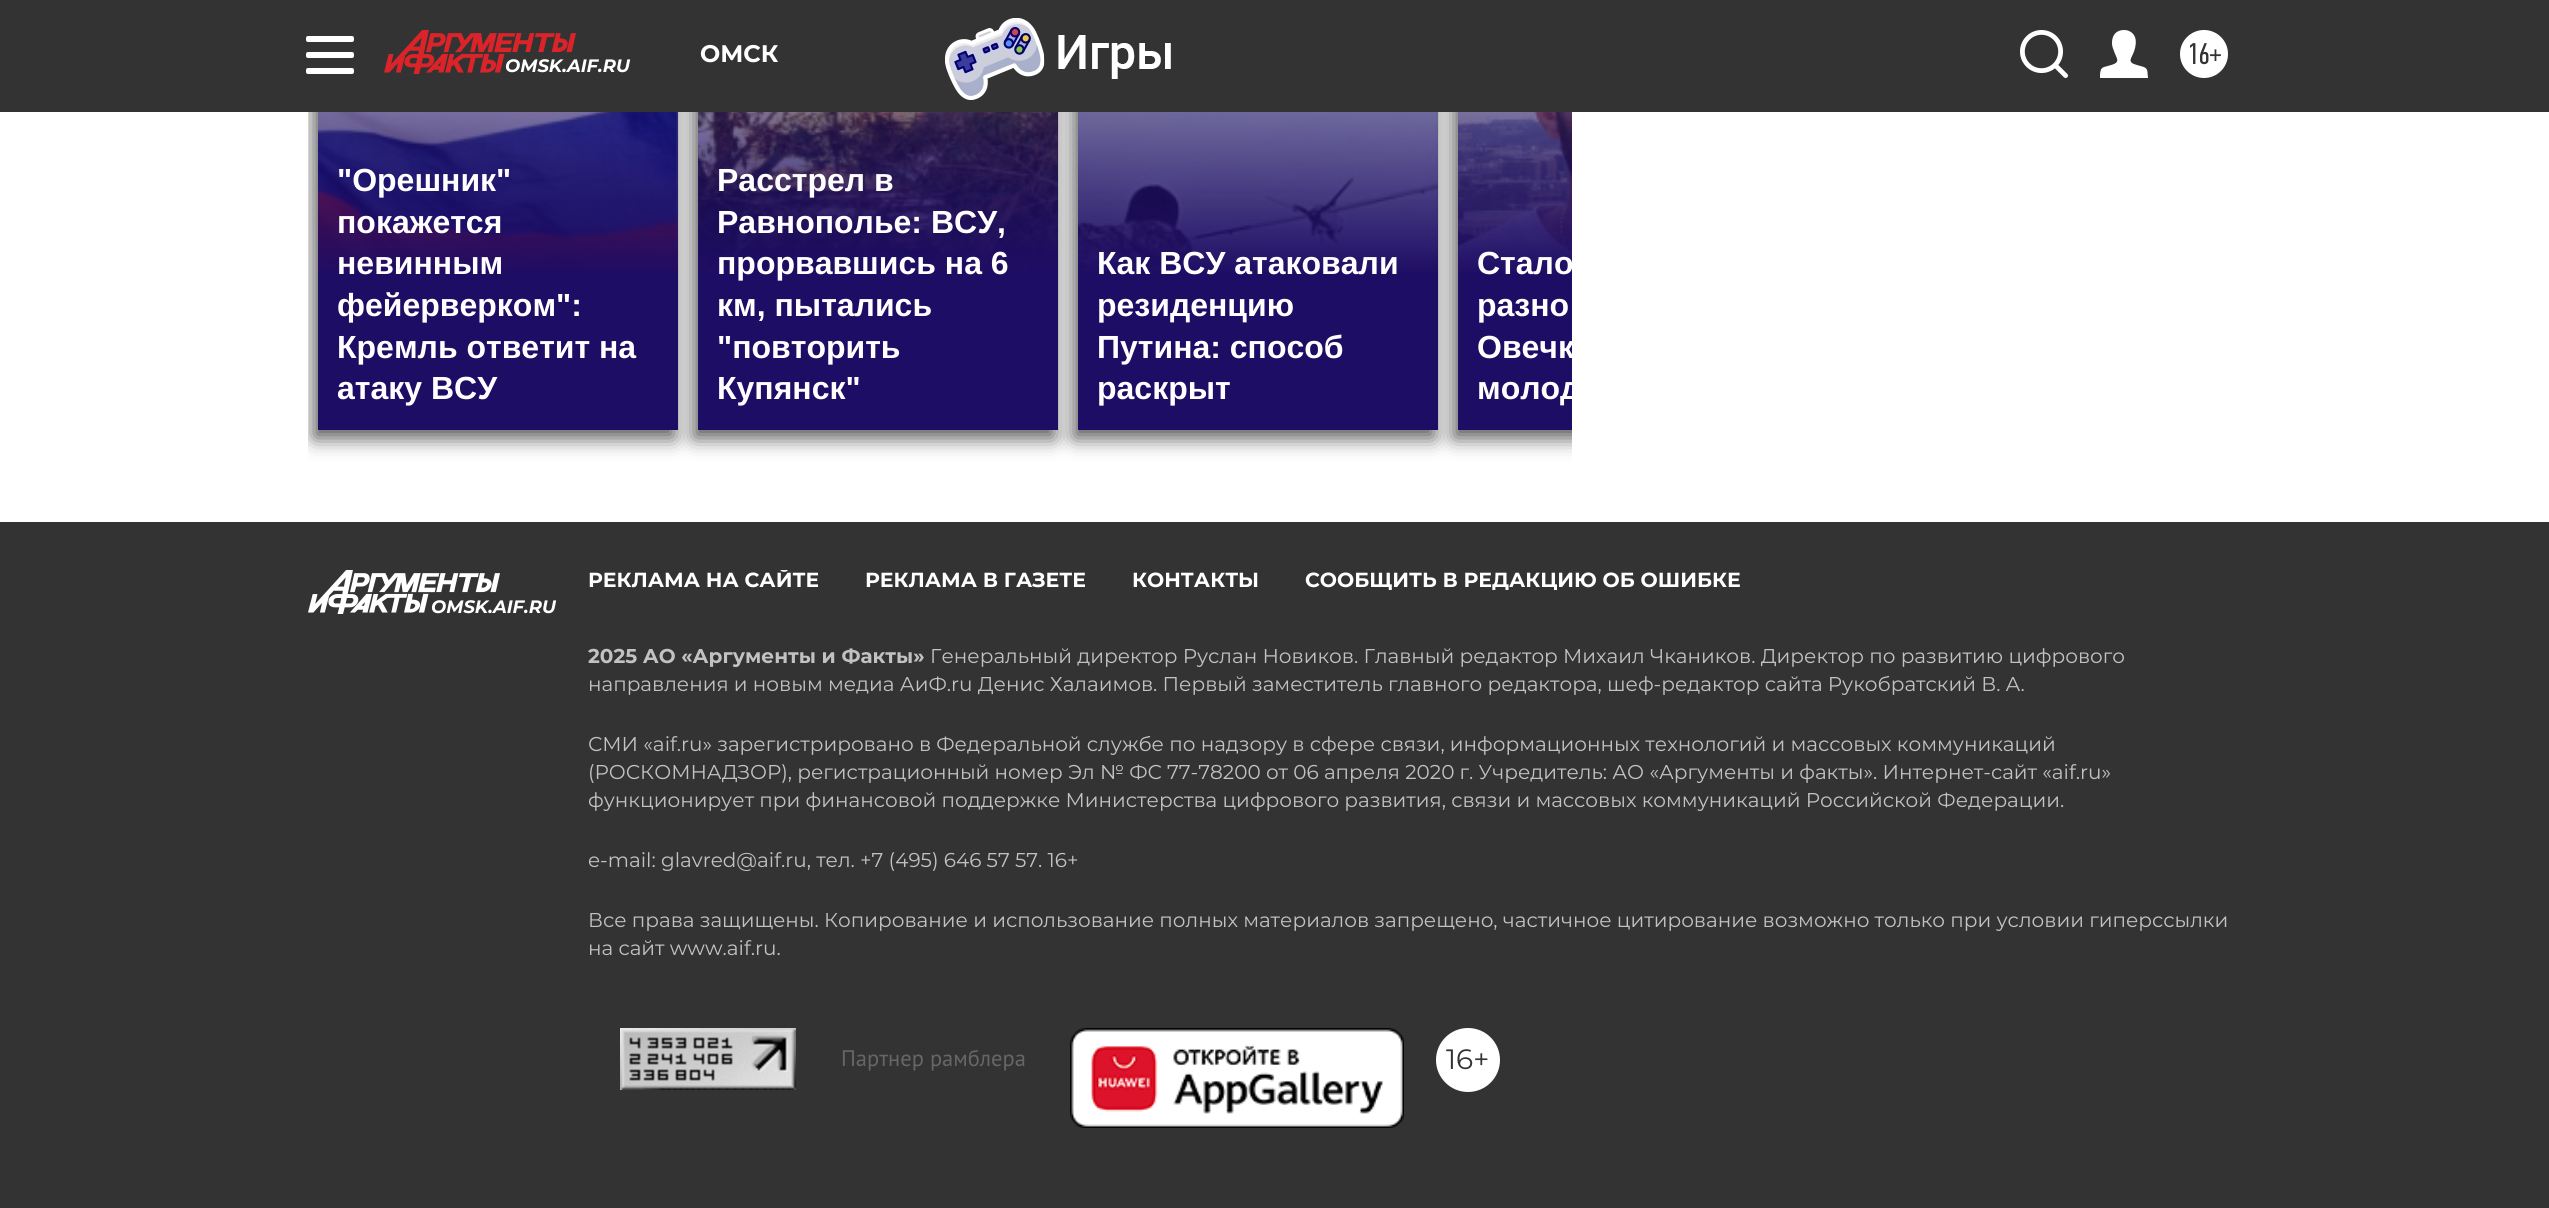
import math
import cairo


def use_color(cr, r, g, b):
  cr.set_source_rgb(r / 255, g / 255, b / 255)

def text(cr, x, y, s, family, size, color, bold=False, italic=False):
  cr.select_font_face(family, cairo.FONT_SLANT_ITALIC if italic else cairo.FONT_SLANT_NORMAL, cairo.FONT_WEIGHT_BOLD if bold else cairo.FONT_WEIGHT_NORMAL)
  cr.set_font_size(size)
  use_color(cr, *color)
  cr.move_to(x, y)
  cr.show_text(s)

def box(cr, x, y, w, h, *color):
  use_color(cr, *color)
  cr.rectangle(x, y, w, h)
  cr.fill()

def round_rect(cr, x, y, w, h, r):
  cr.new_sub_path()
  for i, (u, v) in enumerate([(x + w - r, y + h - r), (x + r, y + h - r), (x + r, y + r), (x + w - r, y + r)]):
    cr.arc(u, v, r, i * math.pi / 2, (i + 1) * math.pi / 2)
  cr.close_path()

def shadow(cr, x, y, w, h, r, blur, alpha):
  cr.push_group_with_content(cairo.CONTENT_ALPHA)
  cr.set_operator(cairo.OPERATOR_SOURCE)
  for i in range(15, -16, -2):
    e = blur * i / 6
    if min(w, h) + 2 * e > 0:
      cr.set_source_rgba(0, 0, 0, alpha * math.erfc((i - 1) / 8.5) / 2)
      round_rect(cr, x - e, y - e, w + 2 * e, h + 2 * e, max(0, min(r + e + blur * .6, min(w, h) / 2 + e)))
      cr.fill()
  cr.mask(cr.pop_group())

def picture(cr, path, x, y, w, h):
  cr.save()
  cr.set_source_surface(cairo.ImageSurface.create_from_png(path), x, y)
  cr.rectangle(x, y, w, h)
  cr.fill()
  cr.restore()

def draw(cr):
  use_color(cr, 255, 255, 255)
  cr.paint()
  cr.save()
  cr.rectangle(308, 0, 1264, 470)
  cr.clip()
  use_color(cr, 86, 84, 84)
  shadow(cr, 314, -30, 360, 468, 0, 10, 1)
  cr.restore()
  picture(cr, "img_05.png", 318, 112, 360, 160)
  use_color(cr, 86, 84, 84)
  shadow(cr, 694, -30, 360, 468, 0, 10, 1)
  picture(cr, "img_06.png", 698, 112, 360, 160)
  shadow(cr, 1074, -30, 360, 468, 0, 10, 1)
  picture(cr, "img_07.png", 1078, 112, 360, 160)
  cr.save()
  cr.rectangle(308, 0, 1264, 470)
  cr.clip()
  shadow(cr, 1454, -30, 360, 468, 0, 10, 1)
  cr.restore()
  box(cr, 0, 0, 2549, 112, 51, 51, 51)
  use_color(cr, 255, 255, 255)
  round_rect(cr, 306, 36, 48, 6, 2)
  cr.fill()
  round_rect(cr, 306, 52, 48, 6, 2)
  cr.fill()
  round_rect(cr, 306, 68, 48, 6, 2)
  cr.fill()
  picture(cr, "img_01.png", 945, 18, 226, 82)
  picture(cr, "img_02.png", 2020, 30, 48, 48)
  picture(cr, "img_03.png", 2100, 30, 48, 48)
  cr.arc(2204, 54, 24, 0, 2 * math.pi)
  cr.fill()
  picture(cr, "img_04.png", 384, 30, 192, 44)
  gradient = cairo.LinearGradient(498, 430, 498, -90)
  gradient.add_color_stop_rgba(0.3, 0.118, 0.051, 0.392, 1)
  gradient.add_color_stop_rgba(1, 0.118, 0.051, 0.392, 0)
  cr.set_source(gradient)
  cr.rectangle(318, 112, 360, 318)
  cr.fill()
  gradient = cairo.LinearGradient(878, 430, 878, -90)
  gradient.add_color_stop_rgba(0.3, 0.118, 0.051, 0.392, 1)
  gradient.add_color_stop_rgba(1, 0.118, 0.051, 0.392, 0)
  cr.set_source(gradient)
  cr.rectangle(698, 112, 360, 318)
  cr.fill()
  gradient = cairo.LinearGradient(1258, 430, 1258, -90)
  gradient.add_color_stop_rgba(0.3, 0.118, 0.051, 0.392, 1)
  gradient.add_color_stop_rgba(1, 0.118, 0.051, 0.392, 0)
  cr.set_source(gradient)
  cr.rectangle(1078, 112, 360, 318)
  cr.fill()
  picture(cr, "img_08.png", 1458, 112, 114, 318)
  box(cr, 0, 522, 2549, 686, 51, 51, 51)
  picture(cr, "img_09.png", 308, 570, 192, 44)
  picture(cr, "img_10.png", 620, 1028, 176, 62)
  picture(cr, "img_11.png", 1070, 1028, 334, 100)
  use_color(cr, 255, 255, 255)
  cr.arc(1468, 1060, 32, 0, 2 * math.pi)
  cr.fill()
  text(cr, 700, 62, "ОМСК", "Montserrat", 24, (255, 255, 255), bold=True)
  text(cr, 2187, 64, "16+", "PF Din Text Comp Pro", 30, (51, 51, 51))
  text(cr, 505, 72, "OMSK.AIF.RU", "Montserrat", 18, (255, 255, 255), bold=True, italic=True)
  text(cr, 337, 191, "\"Орешник\"", "Liberation Sans", 32, (255, 255, 255), bold=True)
  text(cr, 337, 233, "покажется", "Liberation Sans", 32, (255, 255, 255), bold=True)
  text(cr, 337, 274, "невинным", "Liberation Sans", 32, (255, 255, 255), bold=True)
  text(cr, 337, 316, "фейерверком\":", "Liberation Sans", 32, (255, 255, 255), bold=True)
  text(cr, 337, 358, "Кремль ответит на", "Liberation Sans", 32, (255, 255, 255), bold=True)
  text(cr, 337, 399, "атаку ВСУ", "Liberation Sans", 32, (255, 255, 255), bold=True)
  text(cr, 717, 191, "Расстрел в", "Liberation Sans", 32, (255, 255, 255), bold=True)
  text(cr, 717, 233, "Равнополье: ВСУ,", "Liberation Sans", 32, (255, 255, 255), bold=True)
  text(cr, 717, 274, "прорвавшись на 6", "Liberation Sans", 32, (255, 255, 255), bold=True)
  text(cr, 717, 316, "км, пытались", "Liberation Sans", 32, (255, 255, 255), bold=True)
  text(cr, 717, 358, "\"повторить", "Liberation Sans", 32, (255, 255, 255), bold=True)
  text(cr, 717, 399, "Купянск\"", "Liberation Sans", 32, (255, 255, 255), bold=True)
  text(cr, 1097, 274, "Как ВСУ атаковали", "Liberation Sans", 32, (255, 255, 255), bold=True)
  text(cr, 1097, 316, "резиденцию", "Liberation Sans", 32, (255, 255, 255), bold=True)
  text(cr, 1097, 358, "Путина: способ", "Liberation Sans", 32, (255, 255, 255), bold=True)
  text(cr, 1097, 399, "раскрыт", "Liberation Sans", 32, (255, 255, 255), bold=True)
  cr.save()
  cr.rectangle(1458, 0, 114, 430)
  cr.clip()
  text(cr, 1477, 274, "Стало", "Liberation Sans", 32, (255, 255, 255), bold=True)
  cr.restore()
  text(cr, 1477, 316, "разно", "Liberation Sans", 32, (255, 255, 255), bold=True)
  cr.save()
  cr.rectangle(1458, 0, 114, 430)
  cr.clip()
  text(cr, 1477, 358, "Овечк", "Liberation Sans", 32, (255, 255, 255), bold=True)
  text(cr, 1477, 399, "молод", "Liberation Sans", 32, (255, 255, 255), bold=True)
  cr.restore()
  text(cr, 431, 613, "OMSK.AIF.RU", "Montserrat", 18, (255, 255, 255), bold=True, italic=True)
  cr.save()
  cr.rectangle(588, 570, 1656, 42)
  cr.clip()
  text(cr, 588, 587, "РЕКЛАМА НА САЙТЕ", "Montserrat", 20.4, (255, 255, 255), bold=True)
  cr.restore()
  text(cr, 865, 587, "РЕКЛАМА В ГАЗЕТЕ", "Montserrat", 20.4, (255, 255, 255), bold=True)
  text(cr, 1132, 587, "КОНТАКТЫ", "Montserrat", 20.4, (255, 255, 255), bold=True)
  text(cr, 1305, 587, "СООБЩИТЬ В РЕДАКЦИЮ ОБ ОШИБКЕ", "Montserrat", 20.4, (255, 255, 255), bold=True)
  text(cr, 588, 663, "2025 АО «Аргументы и Факты»", "Montserrat", 20, (194, 194, 194), bold=True)
  text(cr, 930, 663, "Генеральный директор Руслан Новиков. Главный редактор Михаил Чкаников. Директор по развитию цифрового", "Montserrat", 20, (194, 194, 194))
  text(cr, 588, 691, "направления и новым медиа АиФ.ru Денис Халаимов. Первый заместитель главного редактора, шеф-редактор сайта Рукобратский В. А.", "Montserrat", 20, (194, 194, 194))
  text(cr, 588, 751, "СМИ «aif.ru» зарегистрировано в Федеральной службе по надзору в сфере связи, информационных технологий и массовых коммуникаций", "Montserrat", 20, (194, 194, 194))
  text(cr, 588, 779, "(РОСКОМНАДЗОР), регистрационный номер Эл № ФС 77-78200 от 06 апреля 2020 г. Учредитель: АО «Аргументы и факты». Интернет-сайт «aif.ru»", "Montserrat", 20, (194, 194, 194))
  text(cr, 588, 807, "функционирует при финансовой поддержке Министерства цифрового развития, связи и массовых коммуникаций Российской Федерации.", "Montserrat", 20, (194, 194, 194))
  text(cr, 588, 867, "e-mail: glavred@aif.ru, тел. +7 (495) 646 57 57. 16+", "Montserrat", 20, (194, 194, 194))
  text(cr, 588, 927, "Все права защищены. Копирование и использование полных материалов запрещено, частичное цитирование возможно только при условии гиперссылки", "Montserrat", 20, (194, 194, 194))
  text(cr, 588, 955, "на сайт www.aif.ru.", "Montserrat", 20, (194, 194, 194))
  text(cr, 841, 1066, "Партнер рамблера", "PT Sans", 22.5, (102, 102, 102))
  text(cr, 1446, 1069, "16+", "Montserrat", 28, (51, 51, 51))


surface = cairo.ImageSurface(cairo.FORMAT_RGB24, 2549, 1208)
cr = cairo.Context(surface)
options = cairo.FontOptions()
options.set_hint_metrics(cairo.HINT_METRICS_OFF)
options.set_hint_style(cairo.HINT_STYLE_NONE)
cr.set_font_options(options)
cr.set_miter_limit(4)
draw(cr)
surface.write_to_png("out.png")
